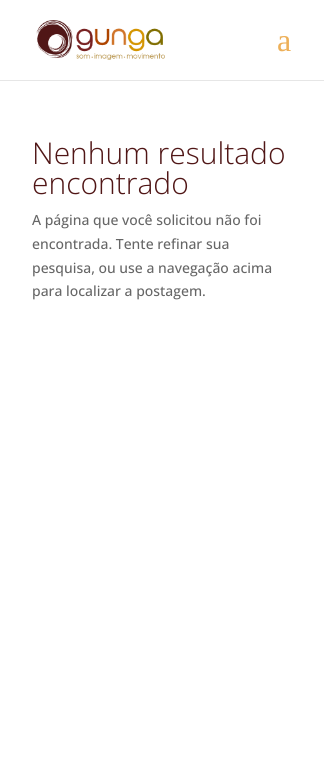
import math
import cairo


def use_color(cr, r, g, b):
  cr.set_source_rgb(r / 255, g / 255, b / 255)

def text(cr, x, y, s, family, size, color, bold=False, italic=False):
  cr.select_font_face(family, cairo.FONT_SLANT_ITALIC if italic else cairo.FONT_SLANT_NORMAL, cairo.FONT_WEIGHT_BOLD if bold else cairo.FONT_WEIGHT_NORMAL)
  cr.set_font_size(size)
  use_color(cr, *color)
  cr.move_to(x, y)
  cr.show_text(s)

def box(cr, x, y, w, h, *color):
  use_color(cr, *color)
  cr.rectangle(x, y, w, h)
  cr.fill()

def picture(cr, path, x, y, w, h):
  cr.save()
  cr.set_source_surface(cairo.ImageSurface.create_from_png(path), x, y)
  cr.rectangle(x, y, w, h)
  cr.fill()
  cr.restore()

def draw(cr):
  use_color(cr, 255, 255, 255)
  cr.paint()
  box(cr, 0, 80, 324, 1, 230, 230, 230)
  picture(cr, "img_01.png", 36, 20, 129, 40)
  text(cr, 277, 51, "a", "Liberation Serif", 32, (237, 176, 89))
  text(cr, 32, 164, "Nenhum resultado", "Open Sans Light", 30, (80, 22, 22))
  text(cr, 32, 194, "encontrado", "Open Sans Light", 30, (80, 22, 22))
  text(cr, 32, 225, "A página que você solicitou não foi", "Open Sans Medium", 14, (102, 102, 102))
  text(cr, 32, 249, "encontrada. Tente refinar sua", "Open Sans Medium", 14, (102, 102, 102))
  text(cr, 32, 273, "pesquisa, ou use a navegação acima", "Open Sans Medium", 14, (102, 102, 102))
  text(cr, 32, 296, "para localizar a postagem.", "Open Sans Medium", 14, (102, 102, 102))


surface = cairo.ImageSurface(cairo.FORMAT_RGB24, 324, 778)
cr = cairo.Context(surface)
options = cairo.FontOptions()
options.set_hint_metrics(cairo.HINT_METRICS_OFF)
options.set_hint_style(cairo.HINT_STYLE_NONE)
cr.set_font_options(options)
cr.set_miter_limit(4)
draw(cr)
surface.write_to_png("out.png")
